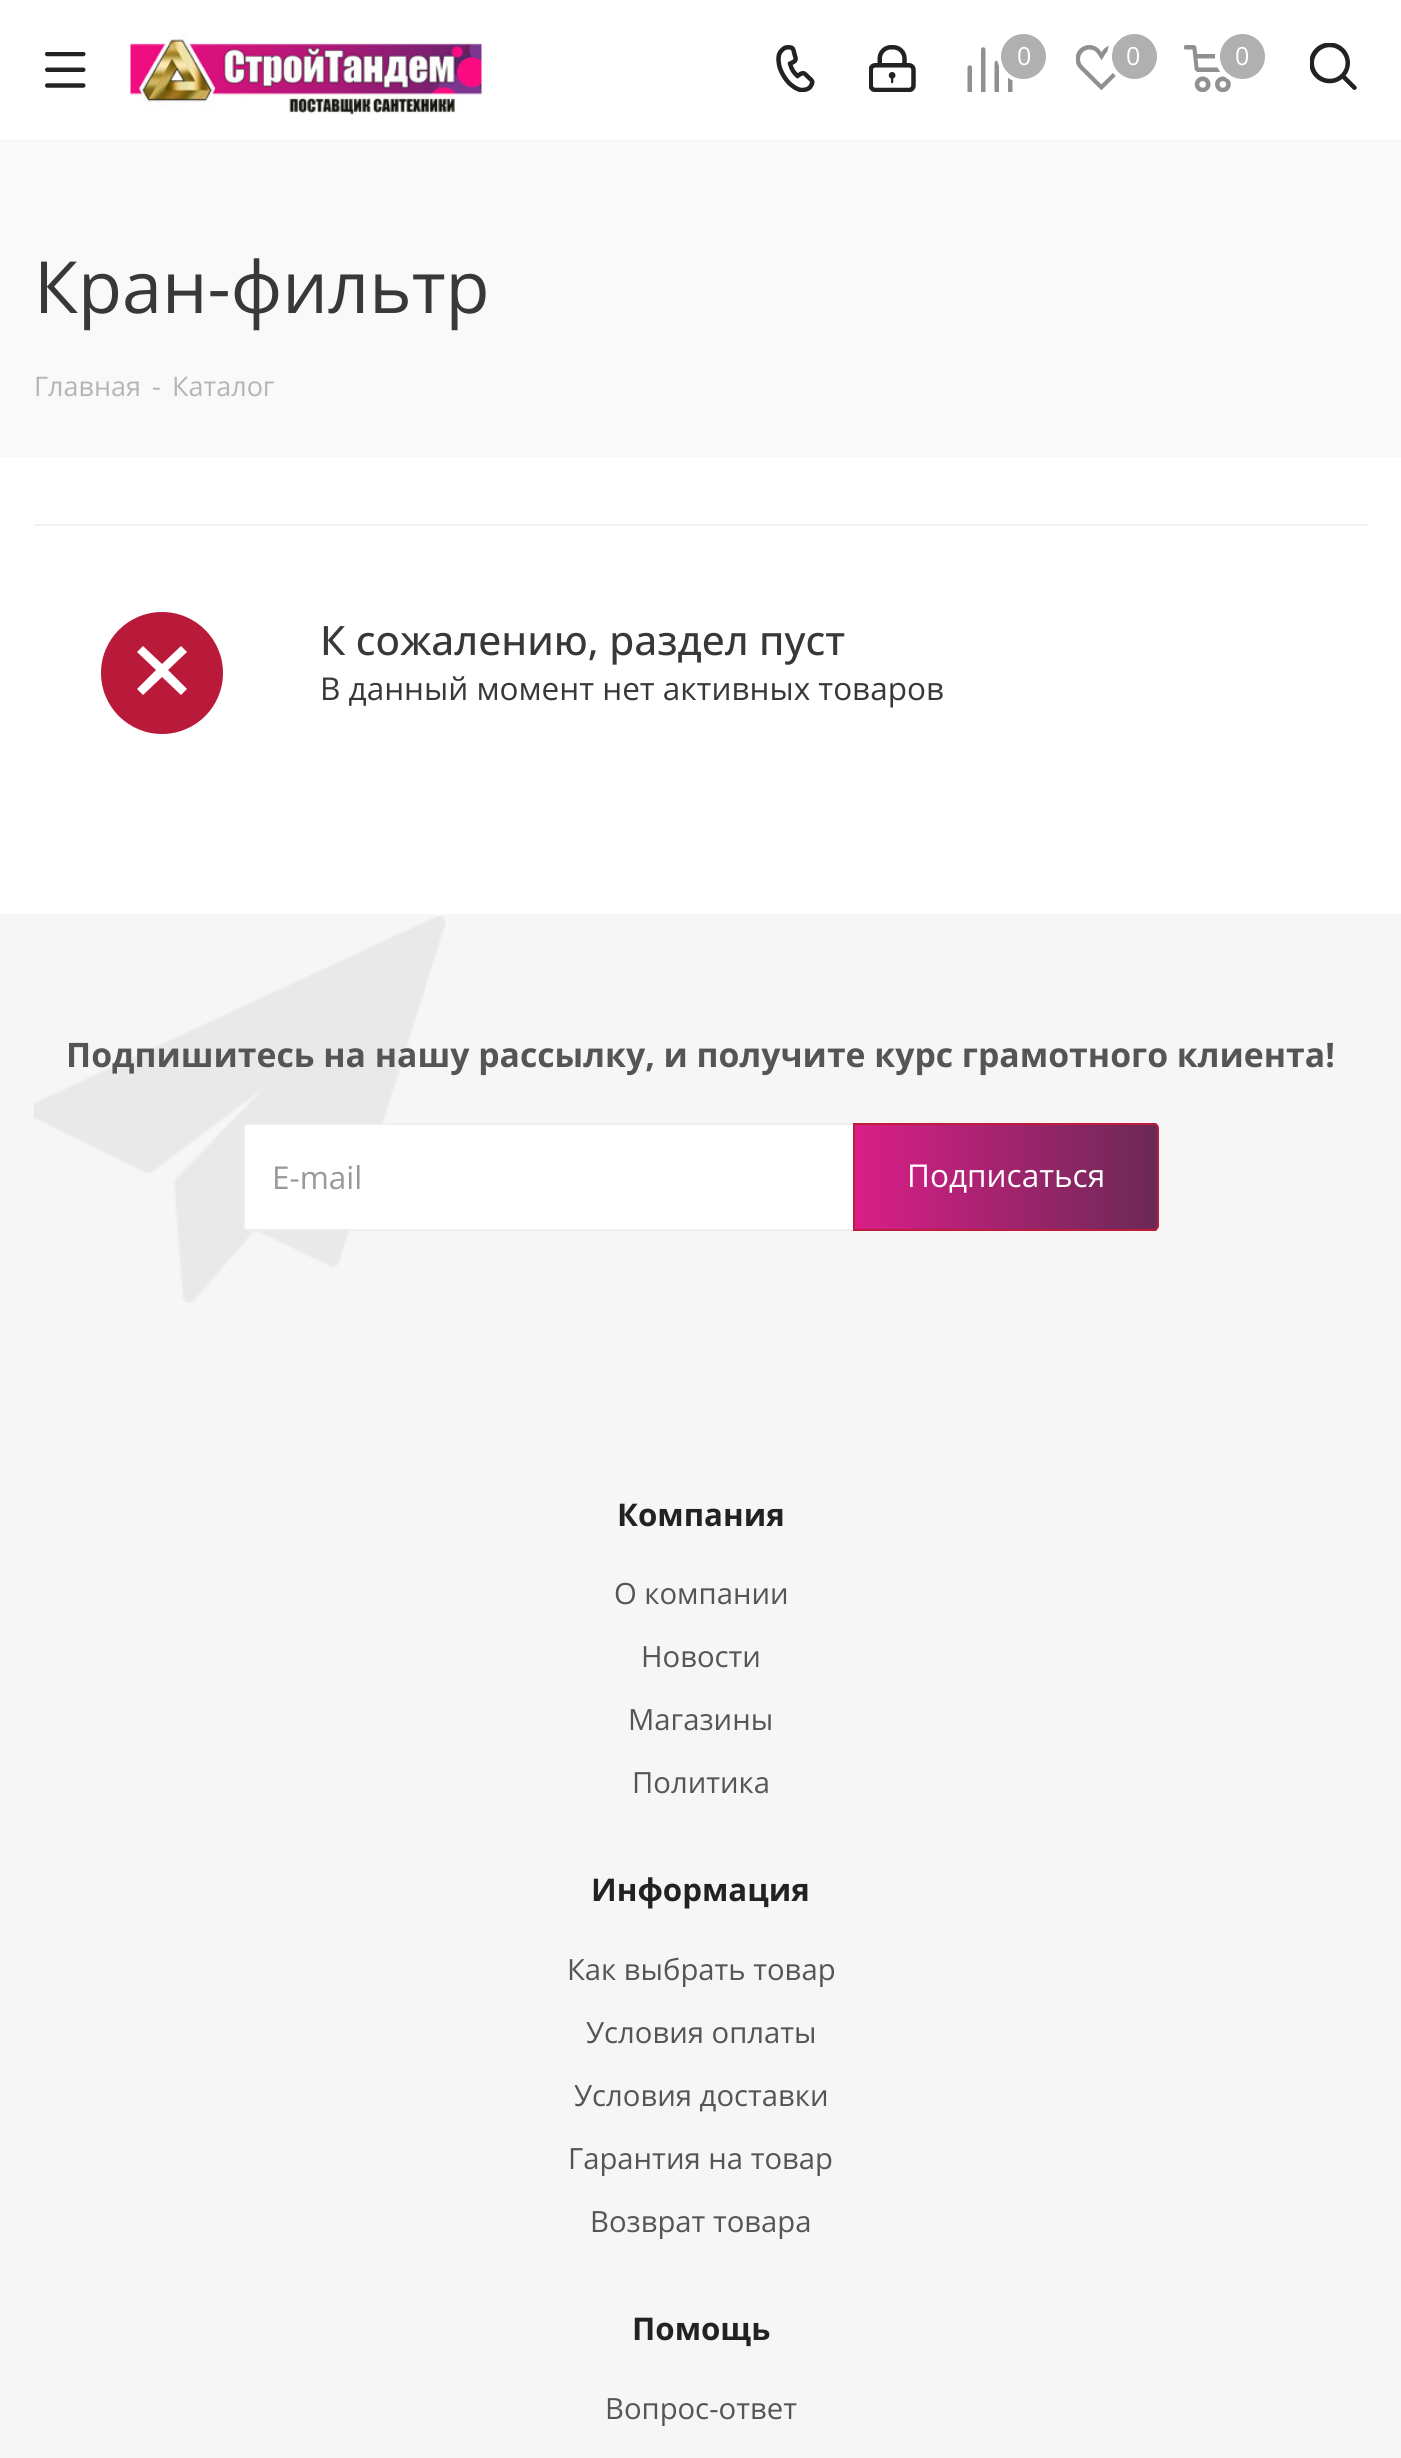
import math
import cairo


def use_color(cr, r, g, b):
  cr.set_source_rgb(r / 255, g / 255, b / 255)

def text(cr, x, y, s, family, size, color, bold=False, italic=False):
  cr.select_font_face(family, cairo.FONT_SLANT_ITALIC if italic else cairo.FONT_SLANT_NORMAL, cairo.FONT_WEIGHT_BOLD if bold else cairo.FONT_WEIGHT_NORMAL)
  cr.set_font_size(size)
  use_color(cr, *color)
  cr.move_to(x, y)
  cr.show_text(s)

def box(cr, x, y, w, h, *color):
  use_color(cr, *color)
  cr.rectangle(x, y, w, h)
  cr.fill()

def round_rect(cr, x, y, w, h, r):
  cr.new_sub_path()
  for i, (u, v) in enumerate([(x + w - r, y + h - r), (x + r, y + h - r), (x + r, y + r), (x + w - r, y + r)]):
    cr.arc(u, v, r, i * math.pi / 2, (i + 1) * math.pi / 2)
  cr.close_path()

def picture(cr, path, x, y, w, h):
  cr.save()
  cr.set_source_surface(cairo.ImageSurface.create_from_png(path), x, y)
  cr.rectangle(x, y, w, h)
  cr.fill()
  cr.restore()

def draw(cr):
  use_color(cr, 255, 255, 255)
  cr.paint()
  box(cr, 0, 140, 1401, 2, 245, 245, 245)
  picture(cr, "img_01.png", 45, 52, 41, 36)
  picture(cr, "img_02.png", 130, 32, 352, 83)
  picture(cr, "img_03.png", 776, 45, 39, 47)
  picture(cr, "img_04.png", 869, 45, 47, 47)
  picture(cr, "img_05.png", 967, 47, 46, 45)
  cr.arc(1024, 56, 24.5, 0, 2 * math.pi)
  use_color(cr, 255, 255, 255)
  cr.set_line_width(5)
  cr.stroke()
  use_color(cr, 176, 176, 176)
  cr.arc(1023.5, 56.5, 22.5, 0, 2 * math.pi)
  cr.fill()
  picture(cr, "img_06.png", 1076, 45, 44, 45)
  cr.arc(1134, 56, 24.5, 0, 2 * math.pi)
  use_color(cr, 255, 255, 255)
  cr.stroke()
  use_color(cr, 176, 176, 176)
  cr.arc(1134.5, 56.5, 22.5, 0, 2 * math.pi)
  cr.fill()
  picture(cr, "img_07.png", 1184, 45, 47, 47)
  cr.arc(1242, 56, 24.5, 0, 2 * math.pi)
  use_color(cr, 255, 255, 255)
  cr.stroke()
  use_color(cr, 176, 176, 176)
  cr.arc(1242.5, 56.5, 22.5, 0, 2 * math.pi)
  cr.fill()
  picture(cr, "img_08.png", 1310, 43, 47, 47)
  box(cr, 0, 142, 1401, 315, 249, 249, 249)
  box(cr, 34, 524, 1334, 2, 242, 242, 242)
  use_color(cr, 186, 26, 58)
  cr.arc(162, 673, 61, 0, 2 * math.pi)
  cr.fill()
  use_color(cr, 255, 255, 255)
  cr.set_fill_rule(cairo.FILL_RULE_EVEN_ODD)
  cr.new_path()
  cr.move_to(187, 689)
  cr.line_to(181, 695)
  cr.line_to(162, 677)
  cr.line_to(143, 695)
  cr.line_to(137, 689)
  cr.line_to(156, 670)
  cr.line_to(137, 652)
  cr.line_to(143, 646)
  cr.line_to(162, 664)
  cr.line_to(181, 646)
  cr.line_to(187, 652)
  cr.line_to(168, 670)
  cr.close_path()
  cr.fill()
  box(cr, 0, 914, 1401, 1544, 246, 246, 247)
  picture(cr, "img_09.png", 34, 916, 412, 387)
  use_color(cr, 255, 255, 255)
  round_rect(cr, 244, 1124, 914, 106, 4)
  cr.fill_preserve()
  use_color(cr, 238, 238, 238)
  cr.set_line_width(2)
  cr.stroke()
  cr.save()
  cr.set_fill_rule(cairo.FILL_RULE_WINDING)
  cr.new_path()
  cr.move_to(853, 1123)
  cr.line_to(1154, 1123)
  cr.curve_to(1157, 1123, 1159, 1125, 1159, 1128)
  cr.line_to(1159, 1226)
  cr.curve_to(1159, 1229, 1157, 1231, 1154, 1231)
  cr.line_to(853, 1231)
  cr.close_path()
  cr.clip()
  gradient = cairo.LinearGradient(855, 1177, 1157, 1177)
  gradient.add_color_stop_rgba(0, 0.855, 0.118, 0.533, 1)
  gradient.add_color_stop_rgba(1, 0.416, 0.161, 0.333, 1)
  cr.set_source(gradient)
  cr.rectangle(855, 1123, 302, 108)
  cr.fill()
  cr.restore()
  cr.new_path()
  cr.move_to(854, 1124)
  cr.line_to(1154, 1124)
  cr.curve_to(1156, 1124, 1158, 1126, 1158, 1128)
  cr.line_to(1158, 1226)
  cr.curve_to(1158, 1228, 1156, 1230, 1154, 1230)
  cr.line_to(854, 1230)
  cr.close_path()
  use_color(cr, 189, 28, 60)
  cr.stroke()
  text(cr, 1017, 65, "0", "Open Sans", 25, (255, 255, 255))
  text(cr, 1126, 65, "0", "Open Sans", 25, (255, 255, 255))
  text(cr, 1235, 65, "0", "Open Sans", 25, (255, 255, 255))
  text(cr, 34, 313, "Кран-фильтр", "Open Sans", 72, (56, 56, 56))
  text(cr, 34, 396, "Главная", "Open Sans", 27, (182, 181, 181))
  text(cr, 152, 396, "-", "Open Sans", 27, (182, 181, 181))
  text(cr, 172, 396, "Каталог", "Open Sans", 27, (182, 181, 181))
  text(cr, 320, 655, "К сожалению, раздел пуст", "Open Sans Medium", 40.5, (56, 56, 56))
  text(cr, 320, 700, "В данный момент нет активных товаров", "Open Sans", 31.5, (56, 56, 56))
  text(cr, 66, 1067, "Подпишитесь на нашу рассылку, и получите курс грамотного клиента!", "Open Sans", 33.75, (85, 85, 85), bold=True)
  text(cr, 272, 1189, "E-mail", "Open Sans", 31.5, (153, 153, 153))
  text(cr, 907, 1187, "Подписаться", "Open Sans", 31.5, (255, 255, 255))
  text(cr, 617, 1526, "Компания", "Open Sans", 31.25, (34, 34, 34), bold=True)
  text(cr, 614, 1604, "О компании", "Open Sans", 29.25, (85, 85, 85))
  text(cr, 641, 1667, "Новости", "Open Sans", 29.25, (85, 85, 85))
  text(cr, 628, 1730, "Магазины", "Open Sans", 29.25, (85, 85, 85))
  text(cr, 632, 1793, "Политика", "Open Sans", 29.25, (85, 85, 85))
  text(cr, 591, 1901, "Информация", "Open Sans", 31.25, (34, 34, 34), bold=True)
  text(cr, 567, 1980, "Как выбрать товар", "Open Sans", 29.25, (85, 85, 85))
  text(cr, 586, 2043, "Условия оплаты", "Open Sans", 29.25, (85, 85, 85))
  text(cr, 574, 2106, "Условия доставки", "Open Sans", 29.25, (85, 85, 85))
  text(cr, 568, 2169, "Гарантия на товар", "Open Sans", 29.25, (85, 85, 85))
  text(cr, 590, 2232, "Возврат товара", "Open Sans", 29.25, (85, 85, 85))
  text(cr, 632, 2340, "Помощь", "Open Sans", 31.25, (34, 34, 34), bold=True)
  text(cr, 605, 2419, "Вопрос-ответ", "Open Sans", 29.25, (85, 85, 85))


surface = cairo.ImageSurface(cairo.FORMAT_RGB24, 1401, 2458)
cr = cairo.Context(surface)
options = cairo.FontOptions()
options.set_hint_metrics(cairo.HINT_METRICS_OFF)
options.set_hint_style(cairo.HINT_STYLE_NONE)
cr.set_font_options(options)
cr.set_miter_limit(4)
draw(cr)
surface.write_to_png("out.png")
